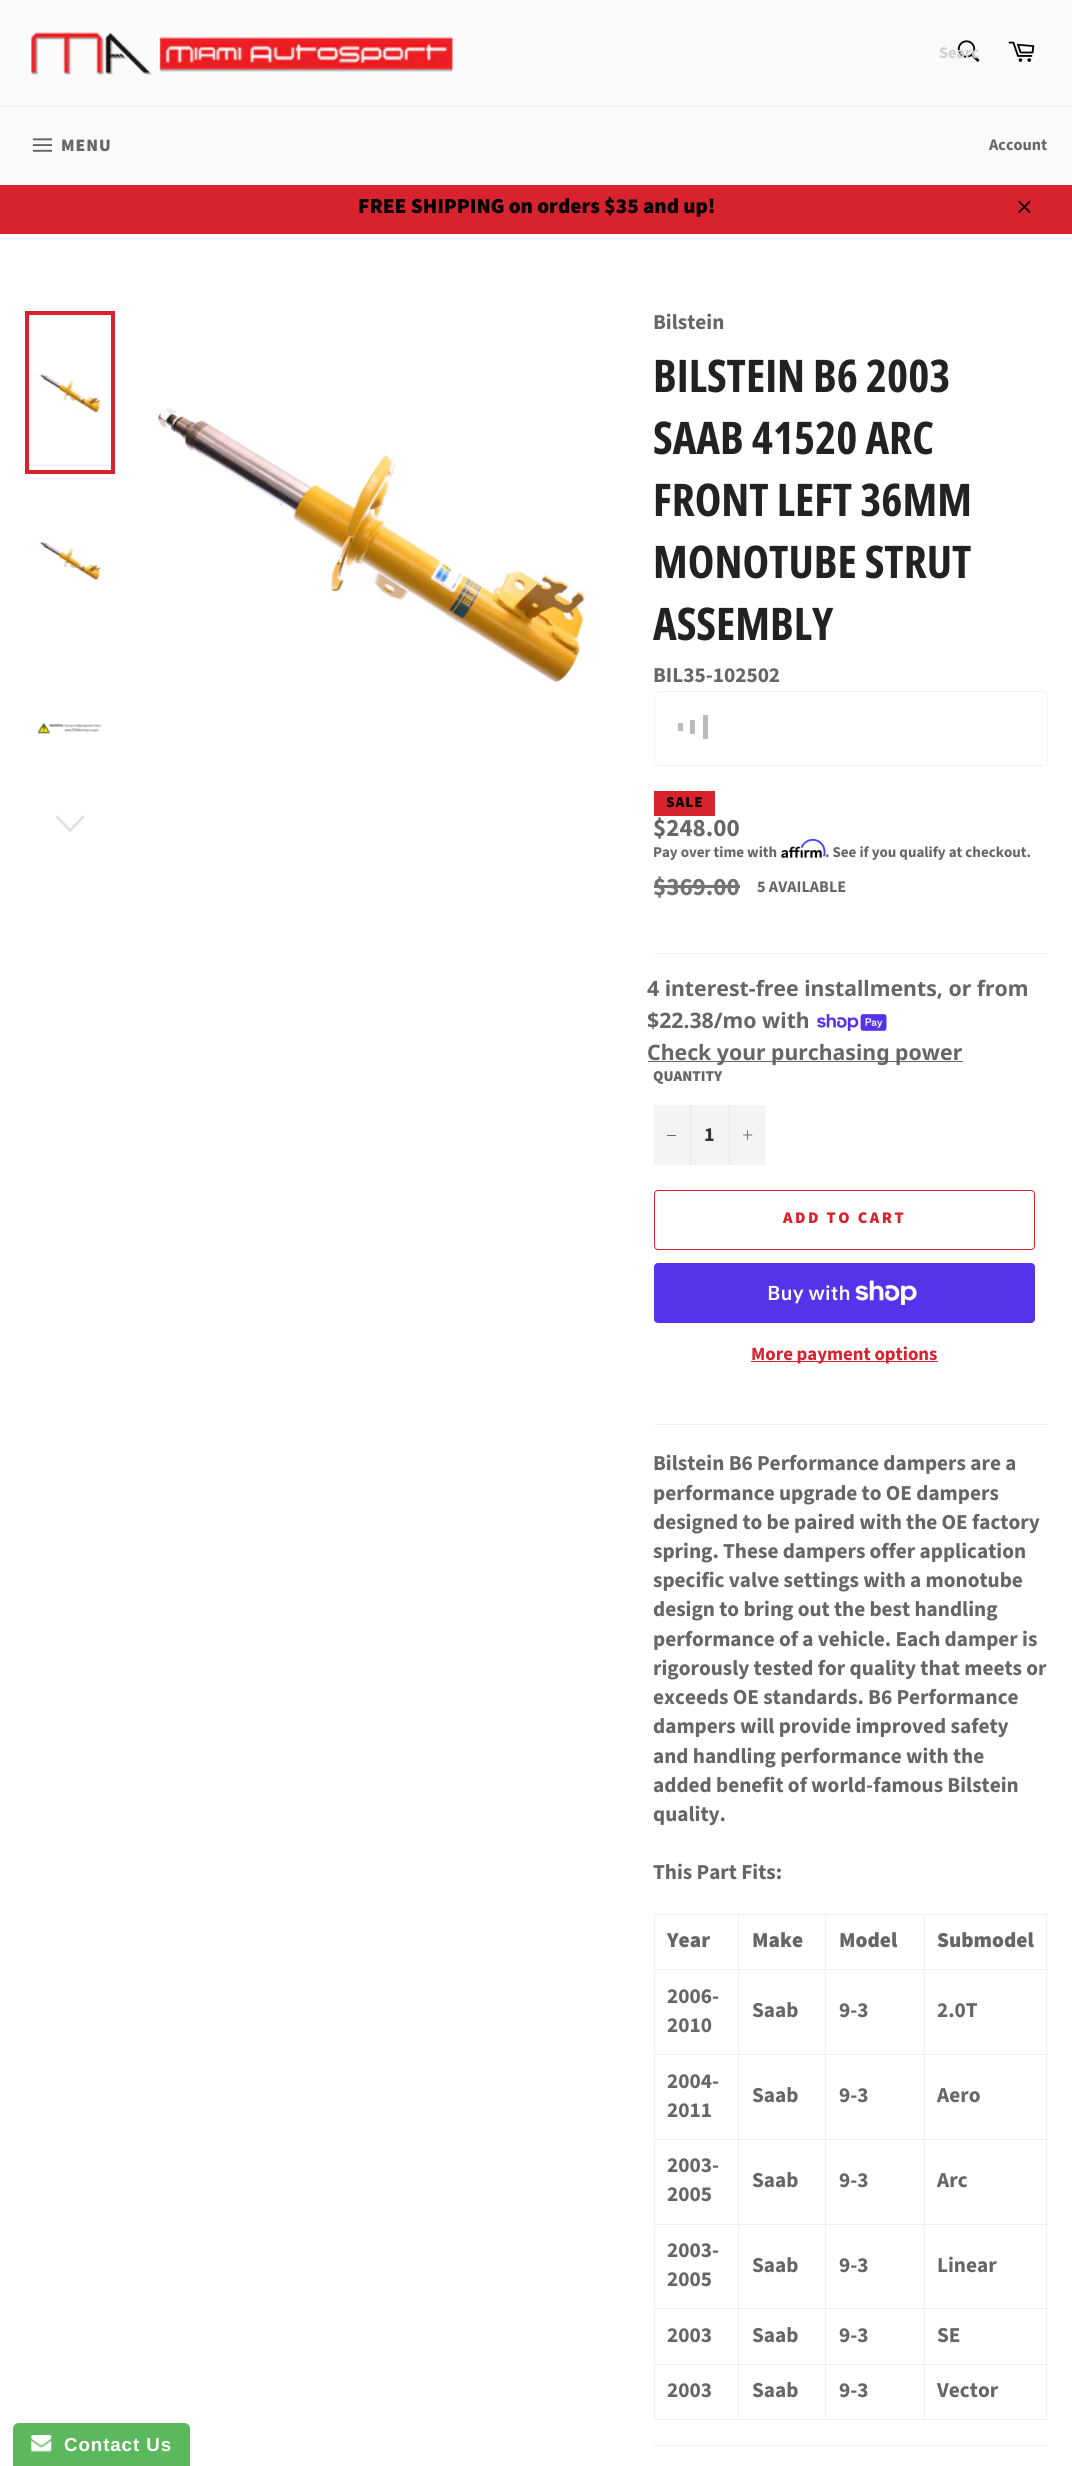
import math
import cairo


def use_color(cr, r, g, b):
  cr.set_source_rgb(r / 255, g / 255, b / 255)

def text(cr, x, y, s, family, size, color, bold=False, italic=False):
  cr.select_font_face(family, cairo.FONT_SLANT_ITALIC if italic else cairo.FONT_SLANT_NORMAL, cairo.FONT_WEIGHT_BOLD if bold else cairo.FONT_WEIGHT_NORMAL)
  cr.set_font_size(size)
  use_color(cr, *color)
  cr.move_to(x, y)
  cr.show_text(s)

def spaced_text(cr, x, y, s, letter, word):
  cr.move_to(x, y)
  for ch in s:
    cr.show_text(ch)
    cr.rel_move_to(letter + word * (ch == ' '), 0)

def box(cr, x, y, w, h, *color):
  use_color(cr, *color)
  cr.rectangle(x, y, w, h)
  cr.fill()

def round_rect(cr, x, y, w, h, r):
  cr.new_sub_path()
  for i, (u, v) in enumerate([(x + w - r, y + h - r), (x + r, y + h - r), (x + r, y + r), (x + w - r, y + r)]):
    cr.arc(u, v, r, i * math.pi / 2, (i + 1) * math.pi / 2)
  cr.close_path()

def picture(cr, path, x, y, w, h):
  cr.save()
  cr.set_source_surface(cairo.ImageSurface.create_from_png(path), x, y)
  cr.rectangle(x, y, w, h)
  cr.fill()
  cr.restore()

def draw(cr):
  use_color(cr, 250, 250, 250)
  cr.paint()
  picture(cr, "img_01.png", 31, 32, 422, 44)
  picture(cr, "img_02.png", 957, 40, 23, 22)
  picture(cr, "img_03.png", 1008, 41, 27, 21)
  box(cr, 0, 106, 1072, 1, 237, 237, 237)
  picture(cr, "img_04.png", 32, 138, 21, 14)
  box(cr, 0, 185, 1072, 49, 216, 35, 47)
  picture(cr, "img_05.png", 1018, 200, 13, 13)
  box(cr, 0, 234, 1072, 2232, 255, 255, 255)
  picture(cr, "img_06.png", 39, 374, 62, 39)
  cr.rectangle(27, 313, 86, 159)
  use_color(cr, 216, 35, 47)
  cr.set_line_width(4)
  cr.stroke()
  picture(cr, "img_07.png", 39, 541, 62, 40)
  picture(cr, "img_08.png", 38, 723, 64, 11)
  use_color(cr, 224, 224, 224)
  cr.new_path()
  cr.move_to(83, 815)
  cr.line_to(84.5, 817)
  cr.line_to(70, 832.5)
  cr.line_to(55.5, 817)
  cr.line_to(57, 815)
  cr.line_to(70, 828.5)
  cr.close_path()
  cr.fill()
  picture(cr, "img_09.png", 156, 408, 432, 276)
  round_rect(cr, 654.5, 691.5, 393, 74, 4.5)
  use_color(cr, 243, 243, 242)
  cr.set_line_width(1)
  cr.stroke()
  box(cr, 678, 723, 5, 8, 187, 187, 187)
  box(cr, 690, 720, 5, 14, 187, 187, 187)
  box(cr, 703, 715, 5, 24, 187, 187, 187)
  box(cr, 654, 791, 61, 25, 216, 35, 47)
  picture(cr, "img_11.png", 781, 846, 41, 12)
  box(cr, 654, 885, 86, 3, 115, 115, 115)
  box(cr, 654, 953, 394, 1, 240, 240, 240)
  picture(cr, "img_12.png", 817, 1014, 70, 17)
  box(cr, 648, 1061, 315, 1, 102, 102, 102)
  box(cr, 654, 1105, 112, 60, 244, 244, 244)
  box(cr, 690, 1105, 1, 60, 231, 231, 231)
  box(cr, 667, 1135, 9, 1, 102, 102, 102)
  box(cr, 729, 1105, 1, 60, 231, 231, 231)
  picture(cr, "img_13.png", 743, 1130, 10, 10)
  round_rect(cr, 654.5, 1190.5, 380, 59, 3.5)
  use_color(cr, 216, 35, 47)
  cr.stroke()
  use_color(cr, 84, 51, 235)
  round_rect(cr, 654, 1263, 381, 60, 4)
  cr.fill()
  picture(cr, "img_14.png", 855, 1280, 62, 25)
  box(cr, 751, 1361, 187, 1, 216, 35, 47)
  box(cr, 654, 1424, 394, 1, 240, 240, 240)
  box(cr, 924, 1914, 124, 1, 240, 240, 240)
  box(cr, 924, 1969, 124, 1, 240, 240, 240)
  box(cr, 924, 2054, 124, 1, 240, 240, 240)
  box(cr, 924, 2139, 124, 1, 240, 240, 240)
  box(cr, 924, 2224, 124, 1, 240, 240, 240)
  box(cr, 924, 2308, 124, 1, 240, 240, 240)
  box(cr, 924, 2364, 124, 1, 240, 240, 240)
  box(cr, 1046, 2364, 1, 56, 240, 240, 240)
  box(cr, 924, 2419, 124, 1, 240, 240, 240)
  box(cr, 924, 2364, 1, 56, 240, 240, 240)
  box(cr, 825, 2364, 100, 1, 240, 240, 240)
  box(cr, 924, 2308, 1, 57, 240, 240, 240)
  box(cr, 825, 2308, 100, 1, 240, 240, 240)
  box(cr, 924, 2224, 1, 85, 240, 240, 240)
  box(cr, 825, 2224, 100, 1, 240, 240, 240)
  box(cr, 924, 2139, 1, 86, 240, 240, 240)
  box(cr, 825, 2139, 100, 1, 240, 240, 240)
  box(cr, 924, 2054, 1, 86, 240, 240, 240)
  box(cr, 825, 2054, 100, 1, 240, 240, 240)
  box(cr, 924, 1969, 1, 86, 240, 240, 240)
  box(cr, 825, 1969, 100, 1, 240, 240, 240)
  box(cr, 924, 1914, 1, 56, 240, 240, 240)
  box(cr, 825, 1914, 100, 1, 240, 240, 240)
  box(cr, 825, 2419, 100, 1, 240, 240, 240)
  box(cr, 825, 2364, 1, 56, 240, 240, 240)
  box(cr, 738, 2364, 88, 1, 240, 240, 240)
  box(cr, 825, 2308, 1, 57, 240, 240, 240)
  box(cr, 738, 2308, 88, 1, 240, 240, 240)
  box(cr, 825, 2224, 1, 85, 240, 240, 240)
  box(cr, 738, 2224, 88, 1, 240, 240, 240)
  box(cr, 825, 2139, 1, 86, 240, 240, 240)
  box(cr, 738, 2139, 88, 1, 240, 240, 240)
  box(cr, 825, 2054, 1, 86, 240, 240, 240)
  box(cr, 738, 2054, 88, 1, 240, 240, 240)
  box(cr, 825, 1969, 1, 86, 240, 240, 240)
  box(cr, 738, 1969, 88, 1, 240, 240, 240)
  box(cr, 825, 1914, 1, 56, 240, 240, 240)
  box(cr, 738, 1914, 88, 1, 240, 240, 240)
  box(cr, 738, 2419, 88, 1, 240, 240, 240)
  box(cr, 738, 2364, 1, 56, 240, 240, 240)
  box(cr, 654, 2364, 85, 1, 240, 240, 240)
  box(cr, 738, 2308, 1, 57, 240, 240, 240)
  box(cr, 654, 2308, 85, 1, 240, 240, 240)
  box(cr, 738, 2224, 1, 85, 240, 240, 240)
  box(cr, 654, 2224, 85, 1, 240, 240, 240)
  box(cr, 738, 2139, 1, 86, 240, 240, 240)
  box(cr, 654, 2139, 85, 1, 240, 240, 240)
  box(cr, 738, 2054, 1, 86, 240, 240, 240)
  box(cr, 654, 2054, 85, 1, 240, 240, 240)
  box(cr, 738, 1969, 1, 86, 240, 240, 240)
  box(cr, 654, 1969, 85, 1, 240, 240, 240)
  box(cr, 738, 1914, 1, 56, 240, 240, 240)
  box(cr, 654, 1914, 85, 1, 240, 240, 240)
  box(cr, 654, 2419, 85, 1, 240, 240, 240)
  box(cr, 654, 2364, 1, 56, 240, 240, 240)
  box(cr, 654, 2308, 1, 57, 240, 240, 240)
  box(cr, 654, 2224, 1, 85, 240, 240, 240)
  box(cr, 654, 2139, 1, 86, 240, 240, 240)
  box(cr, 654, 2054, 1, 86, 240, 240, 240)
  box(cr, 654, 1969, 1, 86, 240, 240, 240)
  box(cr, 654, 1914, 1, 56, 240, 240, 240)
  box(cr, 1046, 2308, 1, 57, 240, 240, 240)
  box(cr, 1046, 2224, 1, 85, 240, 240, 240)
  box(cr, 1046, 2139, 1, 86, 240, 240, 240)
  box(cr, 1046, 2054, 1, 86, 240, 240, 240)
  box(cr, 1046, 1969, 1, 86, 240, 240, 240)
  box(cr, 1046, 1914, 1, 56, 240, 240, 240)
  box(cr, 654, 2445, 394, 1, 240, 240, 240)
  use_color(cr, 92, 184, 92)
  cr.new_path()
  cr.move_to(19, 2423)
  cr.line_to(184, 2423)
  cr.curve_to(187.5, 2423, 190, 2425.5, 190, 2429)
  cr.line_to(190, 2466)
  cr.line_to(13, 2466)
  cr.line_to(13, 2429)
  cr.curve_to(13, 2425.5, 15.5, 2423, 19, 2423)
  cr.close_path()
  cr.fill()
  picture(cr, "img_15.png", 31, 2435, 21, 17)
  text(cr, 939, 58, "Searc", "Source Sans Pro", 16.25, (208, 208, 208), bold=True)
  cr.select_font_face("Source Sans Pro Black")
  cr.set_font_size(17.5)
  use_color(cr, 102, 102, 102)
  spaced_text(cr, 61, 151, "MENU", 1, 0)
  text(cr, 989, 150, "Account", "Source Sans Pro", 16.25, (102, 102, 102), bold=True)
  text(cr, 358, 213, "FREE SHIPPING on orders $35 and up!", "Source Sans Pro Black", 21.25, (0, 0, 0))
  text(cr, 653, 329, "Bilstein", "Source Sans Pro", 21.25, (102, 102, 102), bold=True)
  text(cr, 653, 392, "BILSTEIN B6 2003", "Open Sans Condensed", 45, (34, 34, 34), bold=True)
  text(cr, 653, 454, "SAAB 41520 ARC", "Open Sans Condensed", 45, (34, 34, 34), bold=True)
  text(cr, 653, 516, "FRONT LEFT 36MM", "Open Sans Condensed", 45, (34, 34, 34), bold=True)
  text(cr, 653, 578, "MONOTUBE STRUT", "Open Sans Condensed", 45, (34, 34, 34), bold=True)
  text(cr, 653, 640, "ASSEMBLY", "Open Sans Condensed", 45, (34, 34, 34), bold=True)
  text(cr, 653, 682, "BIL35-102502", "Source Sans Pro", 21.25, (102, 102, 102), bold=True)
  cr.select_font_face("Source Sans Pro Black")
  cr.set_font_size(15)
  use_color(cr, 0, 0, 0)
  spaced_text(cr, 666, 807, "SALE", 1, 0)
  text(cr, 653, 836, "$248.00", "Source Sans Pro", 25, (102, 102, 102), bold=True)
  text(cr, 653, 857, "Pay over time with", "Source Sans Pro", 15, (102, 102, 102), bold=True)
  text(cr, 825, 857, ". See if you qualify at checkout.", "Source Sans Pro", 15, (102, 102, 102), bold=True)
  picture(cr, "img_10.png", 800, 838, 26, 19)
  text(cr, 653, 895, "$369.00", "Source Sans Pro", 25, (115, 115, 115), bold=True)
  text(cr, 757, 892, "5 AVAILABLE", "Source Sans Pro", 16.25, (102, 102, 102), bold=True)
  text(cr, 647, 996, "4 interest-free installments, or from", "Noto Sans", 21.25, (102, 102, 102), bold=True)
  text(cr, 647, 1028, "$22.38/mo with", "Noto Sans", 21.25, (102, 102, 102), bold=True)
  text(cr, 647, 1060, "Check your purchasing power", "Noto Sans", 21.25, (102, 102, 102), bold=True)
  text(cr, 653, 1081, "QUANTITY", "Source Sans Pro Black", 15, (102, 102, 102))
  text(cr, 704, 1141, "1", "Source Sans Pro", 20, (51, 51, 51), bold=True)
  cr.select_font_face("Source Sans Pro Black")
  cr.set_font_size(16.25)
  use_color(cr, 216, 35, 47)
  spaced_text(cr, 783, 1223, "ADD TO CART", 2.5, 0)
  text(cr, 767, 1300, "Buy with", "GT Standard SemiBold", 20, (255, 255, 255))
  text(cr, 751, 1360, "More payment options", "Source Sans Pro", 18.75, (216, 35, 47), bold=True)
  text(cr, 653, 1470, "Bilstein B6 Performance dampers are a", "Source Sans Pro", 21.25, (102, 102, 102), bold=True)
  text(cr, 653, 1500, "performance upgrade to OE dampers", "Source Sans Pro", 21.25, (102, 102, 102), bold=True)
  text(cr, 653, 1529, "designed to be paired with the OE factory", "Source Sans Pro", 21.25, (102, 102, 102), bold=True)
  text(cr, 653, 1558, "spring. These dampers offer application", "Source Sans Pro", 21.25, (102, 102, 102), bold=True)
  text(cr, 653, 1587, "specific valve settings with a monotube", "Source Sans Pro", 21.25, (102, 102, 102), bold=True)
  text(cr, 653, 1616, "design to bring out the best handling", "Source Sans Pro", 21.25, (102, 102, 102), bold=True)
  text(cr, 653, 1646, "performance of a vehicle. Each damper is", "Source Sans Pro", 21.25, (102, 102, 102), bold=True)
  text(cr, 653, 1675, "rigorously tested for quality that meets or", "Source Sans Pro", 21.25, (102, 102, 102), bold=True)
  text(cr, 653, 1704, "exceeds OE standards. B6 Performance", "Source Sans Pro", 21.25, (102, 102, 102), bold=True)
  text(cr, 653, 1733, "dampers will provide improved safety", "Source Sans Pro", 21.25, (102, 102, 102), bold=True)
  text(cr, 653, 1763, "and handling performance with the", "Source Sans Pro", 21.25, (102, 102, 102), bold=True)
  text(cr, 653, 1792, "added benefit of world-famous Bilstein", "Source Sans Pro", 21.25, (102, 102, 102), bold=True)
  text(cr, 653, 1821, "quality.", "Source Sans Pro", 21.25, (102, 102, 102), bold=True)
  text(cr, 653, 1879, "This Part Fits:", "Source Sans Pro", 21.25, (102, 102, 102), bold=True)
  text(cr, 667, 1947, "Year", "Source Sans Pro Black", 21.25, (102, 102, 102))
  text(cr, 752, 1947, "Make", "Source Sans Pro Black", 21.25, (102, 102, 102))
  text(cr, 839, 1947, "Model", "Source Sans Pro Black", 21.25, (102, 102, 102))
  text(cr, 937, 1947, "Submodel", "Source Sans Pro Black", 21.25, (102, 102, 102))
  text(cr, 667, 2003, "2006-", "Source Sans Pro", 21.25, (102, 102, 102), bold=True)
  text(cr, 667, 2032, "2010", "Source Sans Pro", 21.25, (102, 102, 102), bold=True)
  text(cr, 752, 2017, "Saab", "Source Sans Pro", 21.25, (102, 102, 102), bold=True)
  text(cr, 839, 2017, "9-3", "Source Sans Pro", 21.25, (102, 102, 102), bold=True)
  text(cr, 937, 2017, "2.0T", "Source Sans Pro", 21.25, (102, 102, 102), bold=True)
  text(cr, 667, 2088, "2004-", "Source Sans Pro", 21.25, (102, 102, 102), bold=True)
  text(cr, 667, 2117, "2011", "Source Sans Pro", 21.25, (102, 102, 102), bold=True)
  text(cr, 752, 2102, "Saab", "Source Sans Pro", 21.25, (102, 102, 102), bold=True)
  text(cr, 839, 2102, "9-3", "Source Sans Pro", 21.25, (102, 102, 102), bold=True)
  text(cr, 937, 2102, "Aero", "Source Sans Pro", 21.25, (102, 102, 102), bold=True)
  text(cr, 667, 2172, "2003-", "Source Sans Pro", 21.25, (102, 102, 102), bold=True)
  text(cr, 667, 2201, "2005", "Source Sans Pro", 21.25, (102, 102, 102), bold=True)
  text(cr, 752, 2187, "Saab", "Source Sans Pro", 21.25, (102, 102, 102), bold=True)
  text(cr, 839, 2187, "9-3", "Source Sans Pro", 21.25, (102, 102, 102), bold=True)
  text(cr, 937, 2187, "Arc", "Source Sans Pro", 21.25, (102, 102, 102), bold=True)
  text(cr, 667, 2257, "2003-", "Source Sans Pro", 21.25, (102, 102, 102), bold=True)
  text(cr, 667, 2286, "2005", "Source Sans Pro", 21.25, (102, 102, 102), bold=True)
  text(cr, 752, 2272, "Saab", "Source Sans Pro", 21.25, (102, 102, 102), bold=True)
  text(cr, 839, 2272, "9-3", "Source Sans Pro", 21.25, (102, 102, 102), bold=True)
  text(cr, 937, 2272, "Linear", "Source Sans Pro", 21.25, (102, 102, 102), bold=True)
  text(cr, 667, 2342, "2003", "Source Sans Pro", 21.25, (102, 102, 102), bold=True)
  text(cr, 752, 2342, "Saab", "Source Sans Pro", 21.25, (102, 102, 102), bold=True)
  text(cr, 839, 2342, "9-3", "Source Sans Pro", 21.25, (102, 102, 102), bold=True)
  text(cr, 937, 2342, "SE", "Source Sans Pro", 21.25, (102, 102, 102), bold=True)
  text(cr, 667, 2397, "2003", "Source Sans Pro", 21.25, (102, 102, 102), bold=True)
  text(cr, 752, 2397, "Saab", "Source Sans Pro", 21.25, (102, 102, 102), bold=True)
  text(cr, 839, 2397, "9-3", "Source Sans Pro", 21.25, (102, 102, 102), bold=True)
  text(cr, 937, 2397, "Vector", "Source Sans Pro", 21.25, (102, 102, 102), bold=True)
  cr.select_font_face("Liberation Sans", cairo.FONT_SLANT_NORMAL, cairo.FONT_WEIGHT_BOLD)
  cr.set_font_size(18.75)
  use_color(cr, 255, 255, 255)
  spaced_text(cr, 64, 2451, "Contact Us", 0.9, 0)


surface = cairo.ImageSurface(cairo.FORMAT_RGB24, 1072, 2466)
cr = cairo.Context(surface)
options = cairo.FontOptions()
options.set_hint_metrics(cairo.HINT_METRICS_OFF)
options.set_hint_style(cairo.HINT_STYLE_NONE)
cr.set_font_options(options)
cr.set_miter_limit(4)
draw(cr)
surface.write_to_png("out.png")
